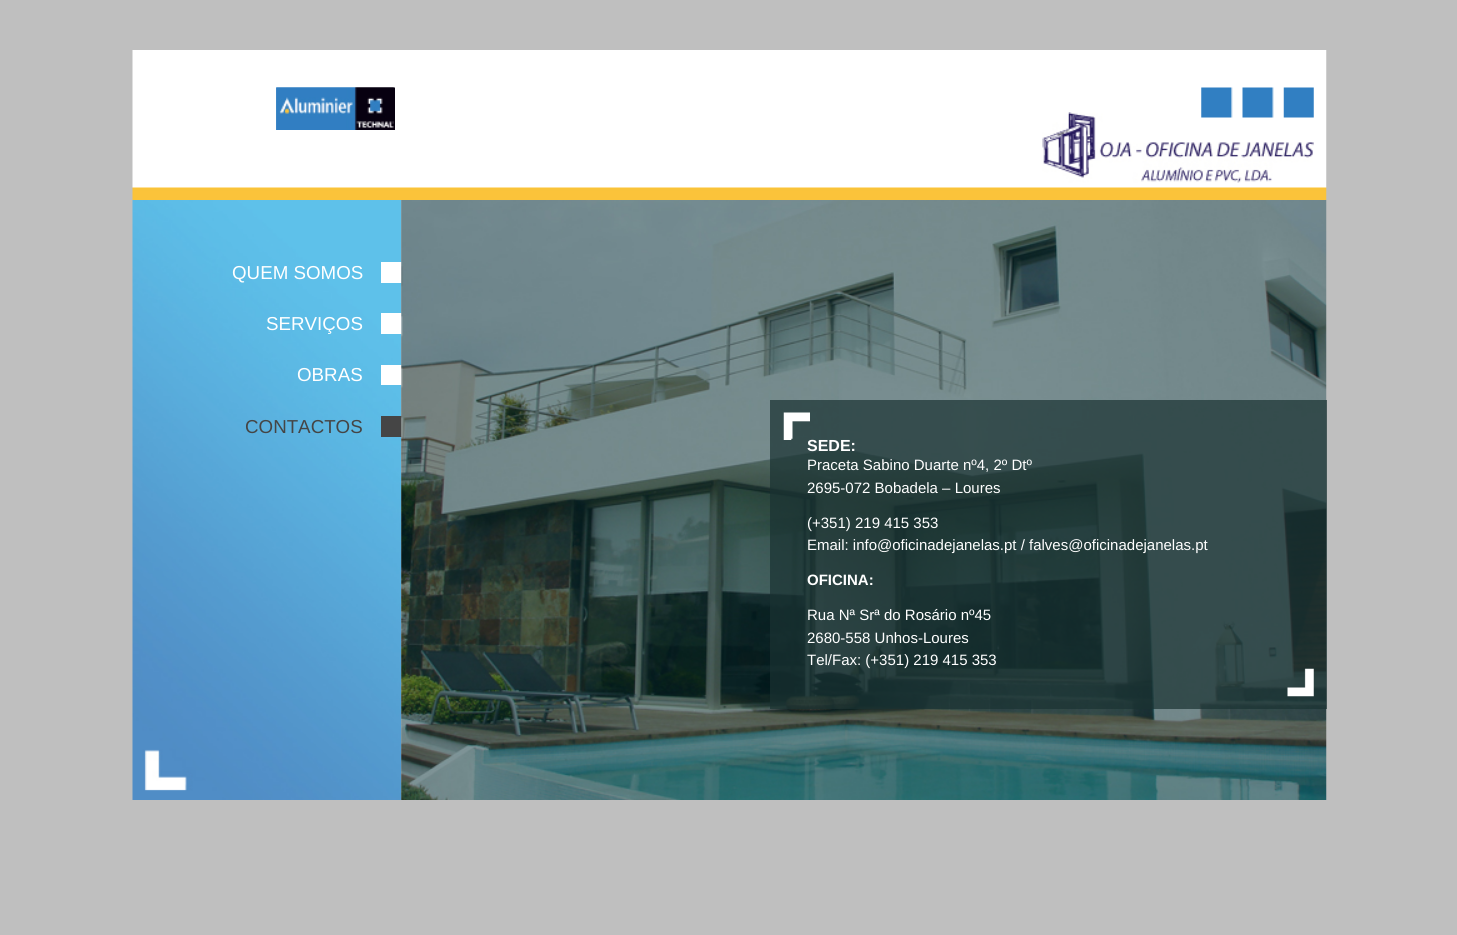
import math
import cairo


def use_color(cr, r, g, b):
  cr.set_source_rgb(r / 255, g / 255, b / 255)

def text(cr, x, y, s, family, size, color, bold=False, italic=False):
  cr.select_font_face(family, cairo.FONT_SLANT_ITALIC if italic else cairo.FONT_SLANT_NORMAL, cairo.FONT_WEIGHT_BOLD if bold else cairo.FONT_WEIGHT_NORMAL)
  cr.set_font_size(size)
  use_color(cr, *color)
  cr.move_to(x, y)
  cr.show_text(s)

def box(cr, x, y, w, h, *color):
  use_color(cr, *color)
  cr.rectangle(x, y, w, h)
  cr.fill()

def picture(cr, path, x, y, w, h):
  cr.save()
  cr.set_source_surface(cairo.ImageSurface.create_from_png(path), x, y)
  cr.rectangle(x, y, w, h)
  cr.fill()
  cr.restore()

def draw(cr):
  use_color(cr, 191, 191, 191)
  cr.paint()
  picture(cr, "img_01.png", 132, 50, 1195, 150)
  picture(cr, "img_02.png", 276, 87, 118, 43)
  picture(cr, "img_03.png", 276, 87, 119, 43)
  picture(cr, "img_05.png", 1042, 112, 272, 46)
  picture(cr, "img_06.png", 1042, 112, 272, 71)
  picture(cr, "img_04.png", 1201, 87, 113, 31)
  picture(cr, "img_07.png", 132, 200, 270, 600)
  box(cr, 381, 262, 21, 21, 255, 255, 255)
  box(cr, 381, 313, 21, 21, 255, 255, 255)
  box(cr, 381, 365, 21, 20, 255, 255, 255)
  box(cr, 381, 416, 21, 21, 69, 69, 69)
  picture(cr, "img_08.png", 401, 200, 926, 600)
  cr.set_source_rgba(0.106, 0.2, 0.196, 0.7)
  cr.rectangle(770, 400, 557, 309)
  cr.fill()
  picture(cr, "img_10.png", 1287, 668, 27, 29)
  text(cr, 232, 279, "QUEM SOMOS", "Liberation Sans", 18.75, (255, 255, 255))
  text(cr, 266, 330, "SERVIÇOS", "Liberation Sans", 18.75, (255, 255, 255))
  text(cr, 297, 381, "OBRAS", "Liberation Sans", 18.75, (255, 255, 255))
  text(cr, 245, 433, "CONTACTOS", "Liberation Sans", 18.75, (69, 69, 69))
  text(cr, 807, 451, "SEDE:", "Liberation Sans", 16, (255, 255, 255), bold=True)
  picture(cr, "img_09.png", 783, 412, 27, 28)
  text(cr, 807, 470, "Praceta Sabino Duarte nº4, 2º Dtº", "Liberation Sans", 15, (255, 255, 255))
  text(cr, 807, 493, "2695-072 Bobadela – Loures", "Liberation Sans", 15, (255, 255, 255))
  text(cr, 807, 528, "(+351) 219 415 353", "Liberation Sans", 15, (255, 255, 255))
  text(cr, 807, 550, "Email: info@oficinadejanelas.pt / falves@oficinadejanelas.pt", "Liberation Sans", 15, (255, 255, 255))
  text(cr, 807, 585, "OFICINA:", "Liberation Sans", 15, (255, 255, 255), bold=True)
  text(cr, 807, 620, "Rua Nª Srª do Rosário nº45", "Liberation Sans", 15, (255, 255, 255))
  text(cr, 807, 643, "2680-558 Unhos-Loures", "Liberation Sans", 15, (255, 255, 255))
  text(cr, 807, 665, "Tel/Fax: (+351) 219 415 353", "Liberation Sans", 15, (255, 255, 255))


surface = cairo.ImageSurface(cairo.FORMAT_RGB24, 1457, 935)
cr = cairo.Context(surface)
options = cairo.FontOptions()
options.set_hint_metrics(cairo.HINT_METRICS_OFF)
options.set_hint_style(cairo.HINT_STYLE_NONE)
cr.set_font_options(options)
cr.set_miter_limit(4)
draw(cr)
surface.write_to_png("out.png")
